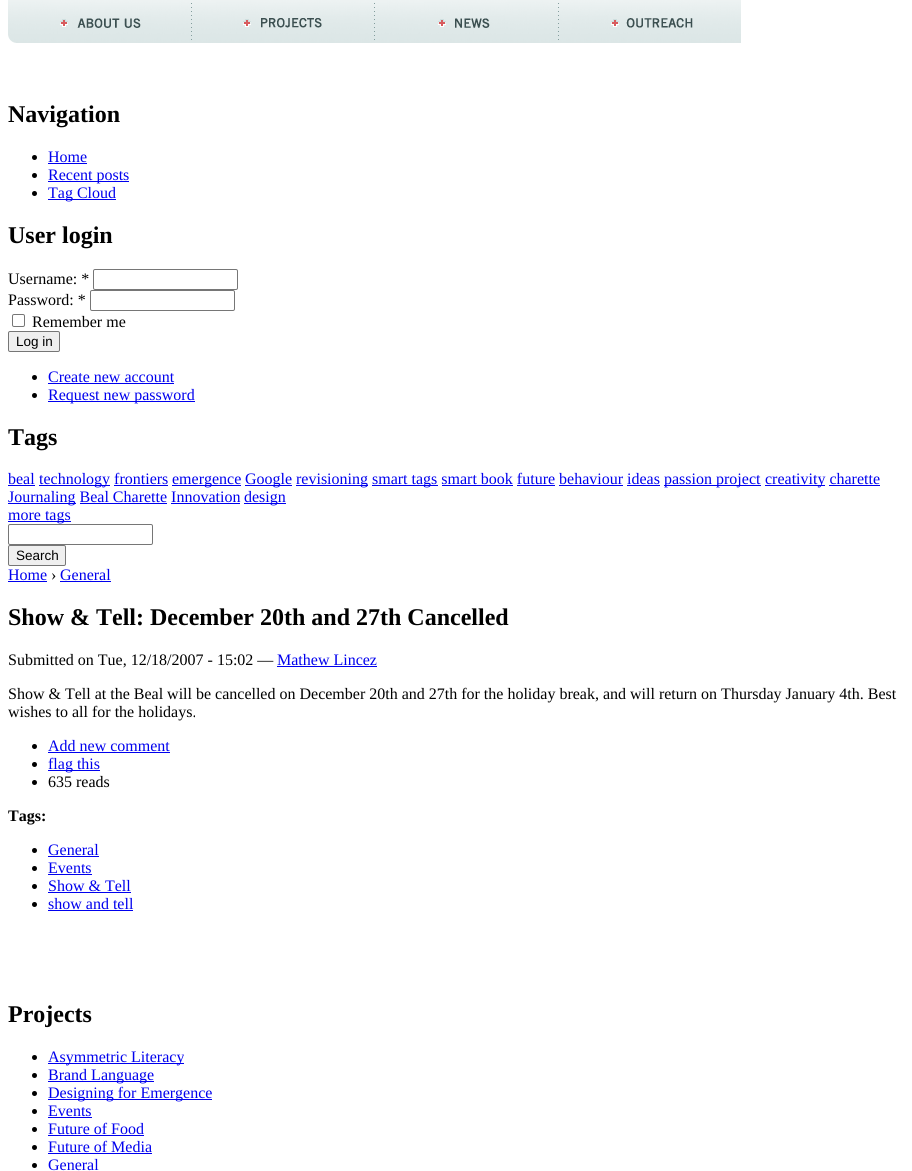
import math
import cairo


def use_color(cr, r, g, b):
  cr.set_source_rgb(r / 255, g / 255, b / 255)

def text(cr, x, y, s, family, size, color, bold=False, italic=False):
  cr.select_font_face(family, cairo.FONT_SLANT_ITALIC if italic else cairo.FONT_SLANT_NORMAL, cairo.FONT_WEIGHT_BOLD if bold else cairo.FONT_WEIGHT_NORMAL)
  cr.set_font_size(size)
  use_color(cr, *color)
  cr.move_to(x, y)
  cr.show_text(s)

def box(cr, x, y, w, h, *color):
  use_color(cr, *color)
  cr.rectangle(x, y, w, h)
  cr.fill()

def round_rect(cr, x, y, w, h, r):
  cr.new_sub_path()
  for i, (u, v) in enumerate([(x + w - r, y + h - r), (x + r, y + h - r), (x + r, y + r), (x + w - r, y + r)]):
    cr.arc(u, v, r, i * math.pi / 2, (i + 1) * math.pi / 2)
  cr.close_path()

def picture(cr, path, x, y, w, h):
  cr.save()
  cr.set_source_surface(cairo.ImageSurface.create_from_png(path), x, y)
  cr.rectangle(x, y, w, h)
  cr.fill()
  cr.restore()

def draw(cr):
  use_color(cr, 255, 255, 255)
  cr.paint()
  picture(cr, "img_01.png", 8, 0, 183, 43)
  picture(cr, "img_02.png", 191, 0, 183, 43)
  picture(cr, "img_03.png", 374, 0, 184, 43)
  picture(cr, "img_04.png", 558, 0, 183, 43)
  use_color(cr, 0, 0, 0)
  cr.arc(34.5, 157.5, 2.5, 0, 2 * math.pi)
  cr.fill()
  box(cr, 48, 163, 39, 1, 0, 0, 238)
  use_color(cr, 0, 0, 0)
  cr.arc(34.5, 175.5, 2.5, 0, 2 * math.pi)
  cr.fill()
  box(cr, 48, 181, 81, 1, 0, 0, 238)
  use_color(cr, 0, 0, 0)
  cr.arc(34.5, 193.5, 2.5, 0, 2 * math.pi)
  cr.fill()
  box(cr, 48, 199, 68, 1, 0, 0, 238)
  round_rect(cr, 93.5, 269.5, 144, 20, 1.5)
  use_color(cr, 118, 118, 118)
  cr.set_line_width(1)
  cr.stroke()
  round_rect(cr, 90.5, 290.5, 144, 20, 1.5)
  cr.stroke()
  round_rect(cr, 12.5, 314.5, 12, 12, 1.5)
  cr.stroke()
  use_color(cr, 239, 239, 239)
  round_rect(cr, 8.5, 331.5, 51, 20, 1.5)
  cr.fill_preserve()
  use_color(cr, 118, 118, 118)
  cr.stroke()
  use_color(cr, 0, 0, 0)
  cr.arc(34.5, 377.5, 2.5, 0, 2 * math.pi)
  cr.fill()
  box(cr, 48, 383, 126, 1, 0, 0, 238)
  use_color(cr, 0, 0, 0)
  cr.arc(34.5, 395.5, 2.5, 0, 2 * math.pi)
  cr.fill()
  box(cr, 48, 401, 147, 1, 0, 0, 238)
  box(cr, 8, 485, 27, 1, 0, 0, 238)
  box(cr, 39, 485, 71, 1, 0, 0, 238)
  box(cr, 172, 485, 69, 1, 0, 0, 238)
  box(cr, 245, 485, 47, 1, 0, 0, 238)
  box(cr, 296, 485, 72, 1, 0, 0, 238)
  box(cr, 372, 485, 66, 1, 0, 0, 238)
  box(cr, 664, 485, 97, 1, 0, 0, 238)
  box(cr, 765, 485, 60, 1, 0, 0, 238)
  box(cr, 114, 485, 54, 1, 0, 0, 238)
  box(cr, 442, 485, 71, 1, 0, 0, 238)
  box(cr, 517, 485, 38, 1, 0, 0, 238)
  box(cr, 559, 485, 64, 1, 0, 0, 238)
  box(cr, 627, 485, 33, 1, 0, 0, 238)
  box(cr, 829, 485, 51, 1, 0, 0, 238)
  box(cr, 8, 503, 68, 1, 0, 0, 238)
  box(cr, 244, 503, 42, 1, 0, 0, 238)
  box(cr, 80, 503, 87, 1, 0, 0, 238)
  box(cr, 171, 503, 69, 1, 0, 0, 238)
  box(cr, 8, 521, 63, 1, 0, 0, 238)
  round_rect(cr, 8.5, 524.5, 144, 20, 1.5)
  use_color(cr, 118, 118, 118)
  cr.stroke()
  use_color(cr, 239, 239, 239)
  round_rect(cr, 8.5, 545.5, 57, 20, 1.5)
  cr.fill_preserve()
  use_color(cr, 118, 118, 118)
  cr.stroke()
  box(cr, 8, 581, 39, 1, 0, 0, 238)
  box(cr, 60, 581, 51, 1, 0, 0, 238)
  box(cr, 277, 666, 100, 1, 0, 0, 238)
  use_color(cr, 0, 0, 0)
  cr.arc(34.5, 746.5, 2.5, 0, 2 * math.pi)
  cr.fill()
  box(cr, 48, 752, 122, 1, 0, 0, 238)
  use_color(cr, 0, 0, 0)
  cr.arc(34.5, 764.5, 2.5, 0, 2 * math.pi)
  cr.fill()
  box(cr, 48, 770, 52, 1, 0, 0, 238)
  use_color(cr, 0, 0, 0)
  cr.arc(34.5, 782.5, 2.5, 0, 2 * math.pi)
  cr.fill()
  cr.arc(34.5, 850.5, 2.5, 0, 2 * math.pi)
  cr.fill()
  box(cr, 48, 856, 51, 1, 0, 0, 238)
  use_color(cr, 0, 0, 0)
  cr.arc(34.5, 868.5, 2.5, 0, 2 * math.pi)
  cr.fill()
  box(cr, 48, 874, 44, 1, 0, 0, 238)
  use_color(cr, 0, 0, 0)
  cr.arc(34.5, 886.5, 2.5, 0, 2 * math.pi)
  cr.fill()
  box(cr, 48, 892, 83, 1, 0, 0, 238)
  use_color(cr, 0, 0, 0)
  cr.arc(34.5, 904.5, 2.5, 0, 2 * math.pi)
  cr.fill()
  box(cr, 48, 910, 85, 1, 0, 0, 238)
  use_color(cr, 0, 0, 0)
  cr.arc(34.5, 1057.5, 2.5, 0, 2 * math.pi)
  cr.fill()
  box(cr, 48, 1063, 136, 1, 0, 0, 238)
  use_color(cr, 0, 0, 0)
  cr.arc(34.5, 1075.5, 2.5, 0, 2 * math.pi)
  cr.fill()
  box(cr, 48, 1081, 106, 1, 0, 0, 238)
  use_color(cr, 0, 0, 0)
  cr.arc(34.5, 1093.5, 2.5, 0, 2 * math.pi)
  cr.fill()
  box(cr, 48, 1099, 164, 1, 0, 0, 238)
  use_color(cr, 0, 0, 0)
  cr.arc(34.5, 1111.5, 2.5, 0, 2 * math.pi)
  cr.fill()
  box(cr, 48, 1117, 44, 1, 0, 0, 238)
  use_color(cr, 0, 0, 0)
  cr.arc(34.5, 1129.5, 2.5, 0, 2 * math.pi)
  cr.fill()
  box(cr, 48, 1135, 96, 1, 0, 0, 238)
  use_color(cr, 0, 0, 0)
  cr.arc(34.5, 1147.5, 2.5, 0, 2 * math.pi)
  cr.fill()
  box(cr, 48, 1153, 104, 1, 0, 0, 238)
  use_color(cr, 0, 0, 0)
  cr.arc(34.5, 1165.5, 2.5, 0, 2 * math.pi)
  cr.fill()
  text(cr, 8, 122, "Navigation", "Liberation Serif", 24, (0, 0, 0), bold=True)
  text(cr, 48, 162, "Home", "Liberation Serif", 16, (0, 0, 238))
  text(cr, 48, 180, "Recent posts", "Liberation Serif", 16, (0, 0, 238))
  text(cr, 48, 198, "Tag Cloud", "Liberation Serif", 16, (0, 0, 238))
  text(cr, 8, 243, "User login", "Liberation Serif", 24, (0, 0, 0), bold=True)
  text(cr, 8, 284, "Username: *", "Liberation Serif", 16, (0, 0, 0))
  text(cr, 8, 305, "Password: *", "Liberation Serif", 16, (0, 0, 0))
  text(cr, 32, 327, "Remember me", "Liberation Serif", 16, (0, 0, 0))
  text(cr, 16, 346, "Log in", "Liberation Sans", 13.5, (0, 0, 0))
  text(cr, 48, 382, "Create new account", "Liberation Serif", 16, (0, 0, 238))
  text(cr, 48, 400, "Request new password", "Liberation Serif", 16, (0, 0, 238))
  text(cr, 8, 445, "Tags", "Liberation Serif", 24, (0, 0, 0), bold=True)
  text(cr, 8, 484, "beal", "Liberation Serif", 16, (0, 0, 238))
  text(cr, 39, 484, "technology frontiers", "Liberation Serif", 16, (0, 0, 238))
  text(cr, 172, 484, "emergence", "Liberation Serif", 16, (0, 0, 238))
  text(cr, 245, 484, "Google", "Liberation Serif", 16, (0, 0, 238))
  text(cr, 296, 484, "revisioning", "Liberation Serif", 16, (0, 0, 238))
  text(cr, 372, 484, "smart tags smart book future behaviour ideas", "Liberation Serif", 16, (0, 0, 238))
  text(cr, 664, 484, "passion project", "Liberation Serif", 16, (0, 0, 238))
  text(cr, 765, 484, "creativity charette", "Liberation Serif", 16, (0, 0, 238))
  text(cr, 8, 502, "Journaling Beal Charette Innovation", "Liberation Serif", 16, (0, 0, 238))
  text(cr, 244, 502, "design", "Liberation Serif", 16, (0, 0, 238))
  text(cr, 8, 520, "more tags", "Liberation Serif", 16, (0, 0, 238))
  text(cr, 16, 560, "Search", "Liberation Sans", 13.5, (0, 0, 0))
  text(cr, 8, 580, "Home", "Liberation Serif", 16, (0, 0, 238))
  text(cr, 51, 580, "›", "Liberation Serif", 16, (0, 0, 0))
  text(cr, 60, 580, "General", "Liberation Serif", 16, (0, 0, 238))
  text(cr, 8, 625, "Show & Tell: December 20th and 27th Cancelled", "Liberation Serif", 24, (0, 0, 0), bold=True)
  text(cr, 8, 665, "Submitted on Tue, 12/18/2007 - 15:02 —", "Liberation Serif", 16, (0, 0, 0))
  text(cr, 277, 665, "Mathew Lincez", "Liberation Serif", 16, (0, 0, 238))
  text(cr, 8, 699, "Show & Tell at the Beal will be cancelled on December 20th and 27th for the holiday break, and will return on Thursday January 4th. Best", "Liberation Serif", 16, (0, 0, 0))
  text(cr, 8, 717, "wishes to all for the holidays.", "Liberation Serif", 16, (0, 0, 0))
  text(cr, 48, 751, "Add new comment", "Liberation Serif", 16, (0, 0, 238))
  text(cr, 48, 769, "flag this", "Liberation Serif", 16, (0, 0, 238))
  text(cr, 48, 787, "635 reads", "Liberation Serif", 16, (0, 0, 0))
  text(cr, 8, 821, "Tags:", "Liberation Serif", 16, (0, 0, 0), bold=True)
  text(cr, 48, 855, "General", "Liberation Serif", 16, (0, 0, 238))
  text(cr, 48, 873, "Events", "Liberation Serif", 16, (0, 0, 238))
  text(cr, 48, 891, "Show & Tell", "Liberation Serif", 16, (0, 0, 238))
  text(cr, 48, 909, "show and tell", "Liberation Serif", 16, (0, 0, 238))
  text(cr, 8, 1022, "Projects", "Liberation Serif", 24, (0, 0, 0), bold=True)
  text(cr, 48, 1062, "Asymmetric Literacy", "Liberation Serif", 16, (0, 0, 238))
  text(cr, 48, 1080, "Brand Language", "Liberation Serif", 16, (0, 0, 238))
  text(cr, 48, 1098, "Designing for Emergence", "Liberation Serif", 16, (0, 0, 238))
  text(cr, 48, 1116, "Events", "Liberation Serif", 16, (0, 0, 238))
  text(cr, 48, 1134, "Future of Food", "Liberation Serif", 16, (0, 0, 238))
  text(cr, 48, 1152, "Future of Media", "Liberation Serif", 16, (0, 0, 238))
  text(cr, 48, 1170, "General", "Liberation Serif", 16, (0, 0, 238))


surface = cairo.ImageSurface(cairo.FORMAT_RGB24, 912, 1171)
cr = cairo.Context(surface)
options = cairo.FontOptions()
options.set_hint_metrics(cairo.HINT_METRICS_OFF)
options.set_hint_style(cairo.HINT_STYLE_NONE)
cr.set_font_options(options)
cr.set_miter_limit(4)
draw(cr)
surface.write_to_png("out.png")
